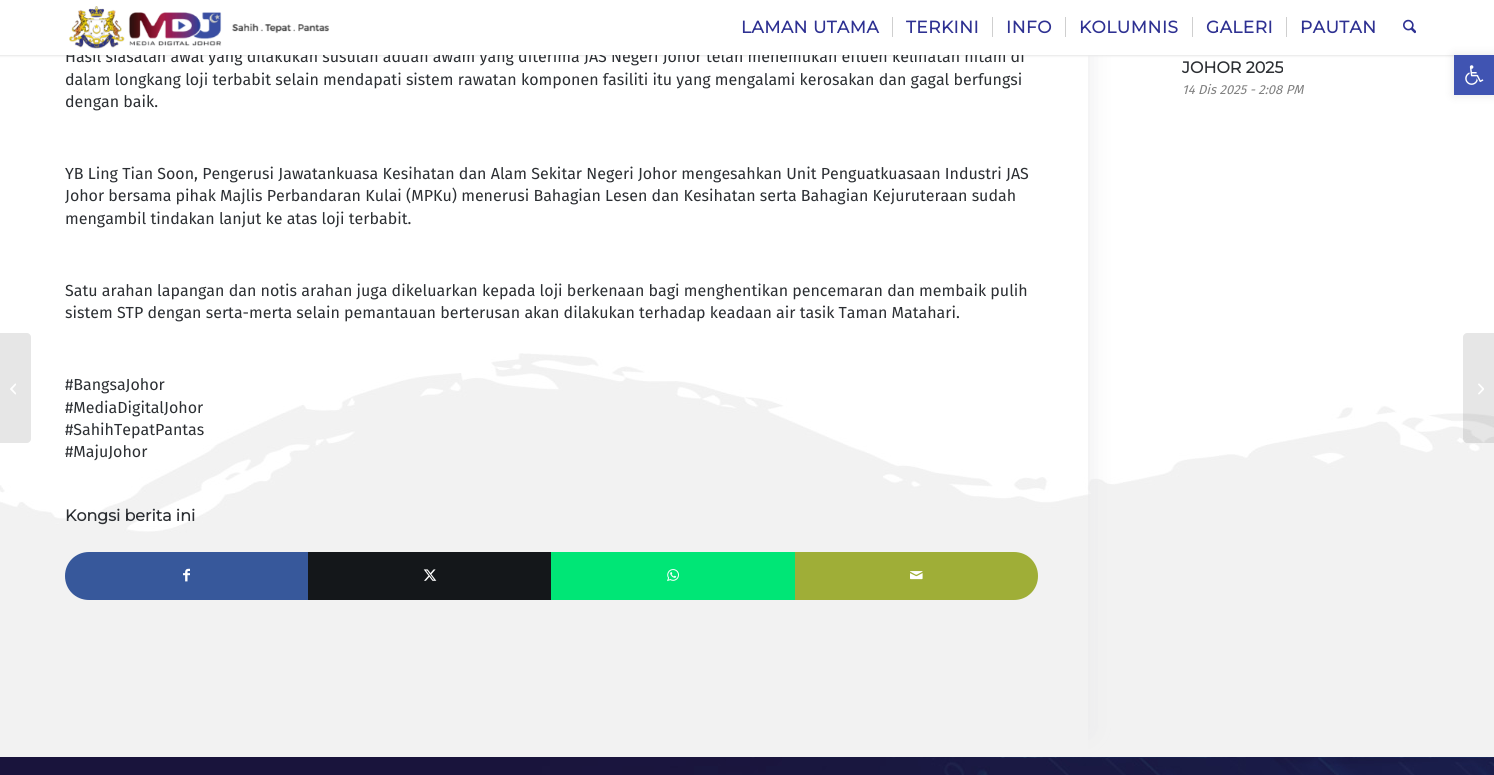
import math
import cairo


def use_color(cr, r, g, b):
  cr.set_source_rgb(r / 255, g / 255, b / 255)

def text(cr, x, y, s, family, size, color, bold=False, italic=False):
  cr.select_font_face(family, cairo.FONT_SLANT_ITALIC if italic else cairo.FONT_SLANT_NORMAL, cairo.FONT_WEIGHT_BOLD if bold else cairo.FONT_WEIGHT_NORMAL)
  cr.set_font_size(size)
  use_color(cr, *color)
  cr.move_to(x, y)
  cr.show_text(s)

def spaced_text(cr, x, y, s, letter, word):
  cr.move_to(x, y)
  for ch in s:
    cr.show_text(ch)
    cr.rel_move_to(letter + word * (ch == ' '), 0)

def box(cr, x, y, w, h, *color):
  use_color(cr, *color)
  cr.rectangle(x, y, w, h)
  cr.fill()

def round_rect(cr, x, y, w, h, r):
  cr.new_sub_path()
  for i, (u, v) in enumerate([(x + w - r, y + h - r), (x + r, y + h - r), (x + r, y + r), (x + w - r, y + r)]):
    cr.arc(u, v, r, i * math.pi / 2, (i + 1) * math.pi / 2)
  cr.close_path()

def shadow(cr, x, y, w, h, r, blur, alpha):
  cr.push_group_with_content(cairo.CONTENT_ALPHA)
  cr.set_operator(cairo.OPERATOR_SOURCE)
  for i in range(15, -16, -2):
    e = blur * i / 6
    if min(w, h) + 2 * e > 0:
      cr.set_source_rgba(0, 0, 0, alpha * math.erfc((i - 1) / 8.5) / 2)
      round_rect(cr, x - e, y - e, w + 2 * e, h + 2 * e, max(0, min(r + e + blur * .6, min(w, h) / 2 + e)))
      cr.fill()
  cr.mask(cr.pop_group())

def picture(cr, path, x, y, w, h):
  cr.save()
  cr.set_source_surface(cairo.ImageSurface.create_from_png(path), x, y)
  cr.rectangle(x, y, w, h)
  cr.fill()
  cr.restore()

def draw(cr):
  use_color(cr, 255, 255, 255)
  cr.paint()
  use_color(cr, 0, 0, 0)
  shadow(cr, -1, -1, 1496, 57, 0, 1, 0.1)
  picture(cr, "img_04.png", 0, 353, 1494, 404)
  use_color(cr, 230, 230, 230)
  cr.new_path()
  cr.move_to(0, 333)
  cr.line_to(27, 333)
  cr.curve_to(29, 333, 31, 335, 31, 337)
  cr.line_to(31, 439)
  cr.curve_to(31, 441, 29, 443, 27, 443)
  cr.line_to(0, 443)
  cr.close_path()
  cr.fill()
  picture(cr, "img_03.png", 10, 383, 6, 12)
  cr.save()
  cr.rectangle(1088, 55, 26, 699)
  cr.clip()
  use_color(cr, 233, 233, 235)
  shadow(cr, 115, -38, 973, 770, 0, 12.5, 1)
  cr.restore()
  use_color(cr, 55, 88, 155)
  cr.new_path()
  cr.move_to(89, 552)
  cr.line_to(308, 552)
  cr.line_to(308, 600)
  cr.line_to(89, 600)
  cr.curve_to(75.5, 600, 65, 589.5, 65, 576)
  cr.curve_to(65, 562.5, 75.5, 552, 89, 552)
  cr.close_path()
  cr.fill()
  picture(cr, "img_05.png", 183, 568, 7, 14)
  box(cr, 308, 552, 243, 48, 20, 23, 26)
  picture(cr, "img_06.png", 423, 569, 14, 12)
  box(cr, 551, 552, 244, 48, 0, 230, 118)
  picture(cr, "img_07.png", 667, 569, 12, 13)
  use_color(cr, 159, 174, 55)
  cr.new_path()
  cr.move_to(795, 552)
  cr.line_to(1014, 552)
  cr.curve_to(1027.5, 552, 1038, 562.5, 1038, 576)
  cr.curve_to(1038, 589.5, 1027.5, 600, 1014, 600)
  cr.line_to(795, 600)
  cr.close_path()
  cr.fill()
  picture(cr, "img_08.png", 910, 571, 13, 9)
  picture(cr, "img_09.png", 0, 757, 1494, 18)
  cr.set_source_rgba(0, 0, 0, 0.1)
  cr.new_path()
  cr.move_to(1467, 333)
  cr.line_to(1494, 333)
  cr.line_to(1494, 443)
  cr.line_to(1467, 443)
  cr.curve_to(1465, 443, 1463, 441, 1463, 439)
  cr.line_to(1463, 337)
  cr.curve_to(1463, 335, 1465, 333, 1467, 333)
  cr.close_path()
  cr.fill()
  picture(cr, "img_10.png", 1478, 383, 6, 12)
  text(cr, 65, 62, "Hasil siasatan awal yang dilakukan susulan aduan awam yang diterima JAS Negeri Johor telah menemukan efluen kelihatan hitam di", "Fira Sans", 16, (44, 47, 51))
  box(cr, 0, 0, 1494, 55, 255, 255, 255)
  picture(cr, "img_02.png", 1403, 19, 13, 15)
  cr.select_font_face("Montserrat", cairo.FONT_SLANT_NORMAL, cairo.FONT_WEIGHT_BOLD)
  cr.set_font_size(17)
  use_color(cr, 46, 49, 146)
  spaced_text(cr, 1300, 33, "PAUTAN", 0.5, 0)
  box(cr, 1286, 17, 1, 20, 207, 207, 207)
  use_color(cr, 46, 49, 146)
  spaced_text(cr, 1206, 33, "GALERI", 0.5, 0)
  box(cr, 1192, 17, 1, 20, 207, 207, 207)
  use_color(cr, 46, 49, 146)
  spaced_text(cr, 1079, 33, "KOLUMNIS", 0.5, 0)
  box(cr, 1065, 17, 1, 20, 207, 207, 207)
  use_color(cr, 46, 49, 146)
  spaced_text(cr, 1006, 33, "INFO", 0.5, 0)
  box(cr, 992, 17, 1, 20, 207, 207, 207)
  use_color(cr, 46, 49, 146)
  spaced_text(cr, 906, 33, "TERKINI", 0.5, 0)
  box(cr, 892, 17, 1, 20, 207, 207, 207)
  use_color(cr, 46, 49, 146)
  spaced_text(cr, 741, 33, "LAMAN UTAMA", 0.5, 0)
  picture(cr, "img_01.png", 69, 6, 261, 43)
  text(cr, 65, 85, "dalam longkang loji terbabit selain mendapati sistem rawatan komponen fasiliti itu yang mengalami kerosakan dan gagal berfungsi", "Fira Sans", 16, (44, 47, 51))
  text(cr, 65, 107, "dengan baik.", "Fira Sans", 16, (44, 47, 51))
  text(cr, 65, 179, "YB Ling Tian Soon, Pengerusi Jawatankuasa Kesihatan dan Alam Sekitar Negeri Johor mengesahkan Unit Penguatkuasaan Industri JAS", "Fira Sans", 16, (44, 47, 51))
  text(cr, 65, 201, "Johor bersama pihak Majlis Perbandaran Kulai (MPKu) menerusi Bahagian Lesen dan Kesihatan serta Bahagian Kejuruteraan sudah", "Fira Sans", 16, (44, 47, 51))
  text(cr, 65, 224, "mengambil tindakan lanjut ke atas loji terbabit.", "Fira Sans", 16, (44, 47, 51))
  text(cr, 65, 296, "Satu arahan lapangan dan notis arahan juga dikeluarkan kepada loji berkenaan bagi menghentikan pencemaran dan membaik pulih", "Fira Sans", 16, (44, 47, 51))
  text(cr, 65, 318, "sistem STP dengan serta-merta selain pemantauan berterusan akan dilakukan terhadap keadaan air tasik Taman Matahari.", "Fira Sans", 16, (44, 47, 51))
  text(cr, 65, 390, "#BangsaJohor", "Fira Sans", 16, (44, 47, 51))
  text(cr, 65, 413, "#MediaDigitalJohor", "Fira Sans", 16, (44, 47, 51))
  text(cr, 65, 435, "#SahihTepatPantas", "Fira Sans", 16, (44, 47, 51))
  text(cr, 65, 457, "#MajuJohor", "Fira Sans", 16, (44, 47, 51))
  text(cr, 65, 521, "Kongsi berita ini", "Montserrat", 16, (44, 47, 51), bold=True)
  text(cr, 1182, 73, "JOHOR 2025", "Montserrat", 16, (44, 47, 51), bold=True)
  text(cr, 1182, 94, "14 Dis 2025 - 2:08 PM", "Fira Sans", 13, (128, 128, 128), italic=True)
  use_color(cr, 0, 0, 0)
  shadow(cr, 1454, 55, 40, 40, 0, 5, 0.1)
  box(cr, 1454, 55, 40, 40, 64, 84, 178)
  picture(cr, "img_11.png", 1465, 65, 19, 20)


surface = cairo.ImageSurface(cairo.FORMAT_RGB24, 1494, 775)
cr = cairo.Context(surface)
options = cairo.FontOptions()
options.set_hint_metrics(cairo.HINT_METRICS_OFF)
options.set_hint_style(cairo.HINT_STYLE_NONE)
cr.set_font_options(options)
cr.set_miter_limit(4)
draw(cr)
surface.write_to_png("out.png")
